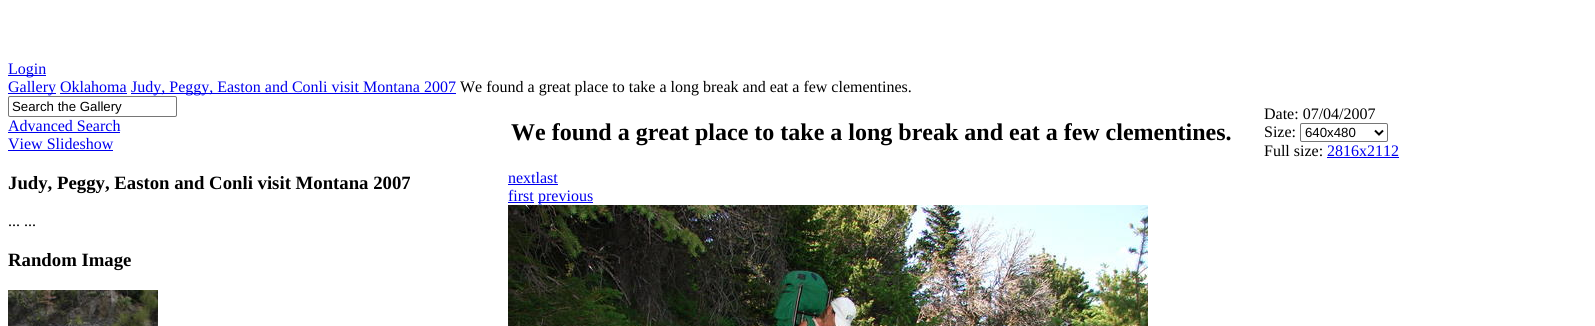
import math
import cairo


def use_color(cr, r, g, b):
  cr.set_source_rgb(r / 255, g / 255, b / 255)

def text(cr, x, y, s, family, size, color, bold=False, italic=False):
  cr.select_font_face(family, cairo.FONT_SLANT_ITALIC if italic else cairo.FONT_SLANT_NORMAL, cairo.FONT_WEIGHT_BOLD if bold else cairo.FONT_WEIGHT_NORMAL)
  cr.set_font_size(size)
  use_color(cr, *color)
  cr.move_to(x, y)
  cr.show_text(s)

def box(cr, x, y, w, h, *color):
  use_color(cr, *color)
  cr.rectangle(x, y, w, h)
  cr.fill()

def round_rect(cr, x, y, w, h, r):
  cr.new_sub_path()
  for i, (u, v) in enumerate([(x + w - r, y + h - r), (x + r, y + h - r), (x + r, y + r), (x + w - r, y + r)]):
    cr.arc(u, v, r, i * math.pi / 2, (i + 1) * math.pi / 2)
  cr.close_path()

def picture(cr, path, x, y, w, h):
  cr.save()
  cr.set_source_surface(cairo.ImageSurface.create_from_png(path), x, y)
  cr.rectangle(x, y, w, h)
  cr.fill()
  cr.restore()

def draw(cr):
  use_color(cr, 255, 255, 255)
  cr.paint()
  box(cr, 8, 75, 38, 1, 0, 0, 238)
  box(cr, 8, 93, 48, 1, 0, 0, 238)
  box(cr, 131, 93, 325, 1, 0, 0, 238)
  box(cr, 60, 93, 67, 1, 0, 0, 238)
  round_rect(cr, 8.5, 96.5, 168, 20, 1.5)
  use_color(cr, 118, 118, 118)
  cr.set_line_width(1)
  cr.stroke()
  box(cr, 8, 132, 112, 1, 0, 0, 238)
  box(cr, 8, 150, 105, 1, 0, 0, 238)
  picture(cr, "img_01.png", 8, 290, 150, 36)
  round_rect(cr, 1300.5, 123.5, 87, 18, 1.5)
  use_color(cr, 118, 118, 118)
  cr.stroke()
  cr.new_path()
  cr.move_to(1375, 130.5)
  cr.line_to(1379, 134.5)
  cr.line_to(1383, 130.5)
  use_color(cr, 0, 0, 0)
  cr.set_line_width(2)
  cr.stroke()
  box(cr, 1327, 157, 72, 1, 0, 0, 238)
  box(cr, 508, 184, 50, 1, 0, 0, 238)
  box(cr, 508, 202, 26, 1, 0, 0, 238)
  box(cr, 538, 202, 55, 1, 0, 0, 238)
  picture(cr, "img_02.png", 508, 205, 640, 121)
  text(cr, 8, 74, "Login", "Liberation Serif", 16, (0, 0, 238))
  text(cr, 8, 92, "Gallery Oklahoma", "Liberation Serif", 16, (0, 0, 238))
  text(cr, 131, 92, "Judy, Peggy, Easton and Conli visit Montana 2007", "Liberation Serif", 16, (0, 0, 238))
  text(cr, 460, 92, "We found a great place to take a long break and eat a few clementines.", "Liberation Serif", 16, (0, 0, 0))
  text(cr, 12, 111, "Search the Gallery", "Liberation Sans", 13.25, (0, 0, 0))
  text(cr, 8, 131, "Advanced Search", "Liberation Serif", 16, (0, 0, 238))
  text(cr, 8, 149, "View Slideshow", "Liberation Serif", 16, (0, 0, 238))
  text(cr, 8, 189, "Judy, Peggy, Easton and Conli visit Montana 2007", "Liberation Serif", 18.75, (0, 0, 0), bold=True)
  text(cr, 8, 226, "... ...", "Liberation Serif", 16, (0, 0, 0))
  text(cr, 8, 266, "Random Image", "Liberation Serif", 18.75, (0, 0, 0), bold=True)
  text(cr, 511, 140, "We found a great place to take a long break and eat a few clementines.", "Liberation Serif", 24, (0, 0, 0), bold=True)
  text(cr, 1264, 119, "Date: 07/04/2007", "Liberation Serif", 16, (0, 0, 0))
  text(cr, 1264, 137, "Size:", "Liberation Serif", 16, (0, 0, 0))
  text(cr, 1305, 137, "640x480", "Liberation Sans", 13.25, (0, 0, 0))
  text(cr, 1264, 156, "Full size:", "Liberation Serif", 16, (0, 0, 0))
  text(cr, 1327, 156, "2816x2112", "Liberation Serif", 16, (0, 0, 238))
  text(cr, 508, 183, "nextlast", "Liberation Serif", 16, (0, 0, 238))
  text(cr, 508, 201, "first", "Liberation Serif", 16, (0, 0, 238))
  text(cr, 538, 201, "previous", "Liberation Serif", 16, (0, 0, 238))


surface = cairo.ImageSurface(cairo.FORMAT_RGB24, 1595, 326)
cr = cairo.Context(surface)
options = cairo.FontOptions()
options.set_hint_metrics(cairo.HINT_METRICS_OFF)
options.set_hint_style(cairo.HINT_STYLE_NONE)
cr.set_font_options(options)
cr.set_miter_limit(4)
draw(cr)
surface.write_to_png("out.png")
